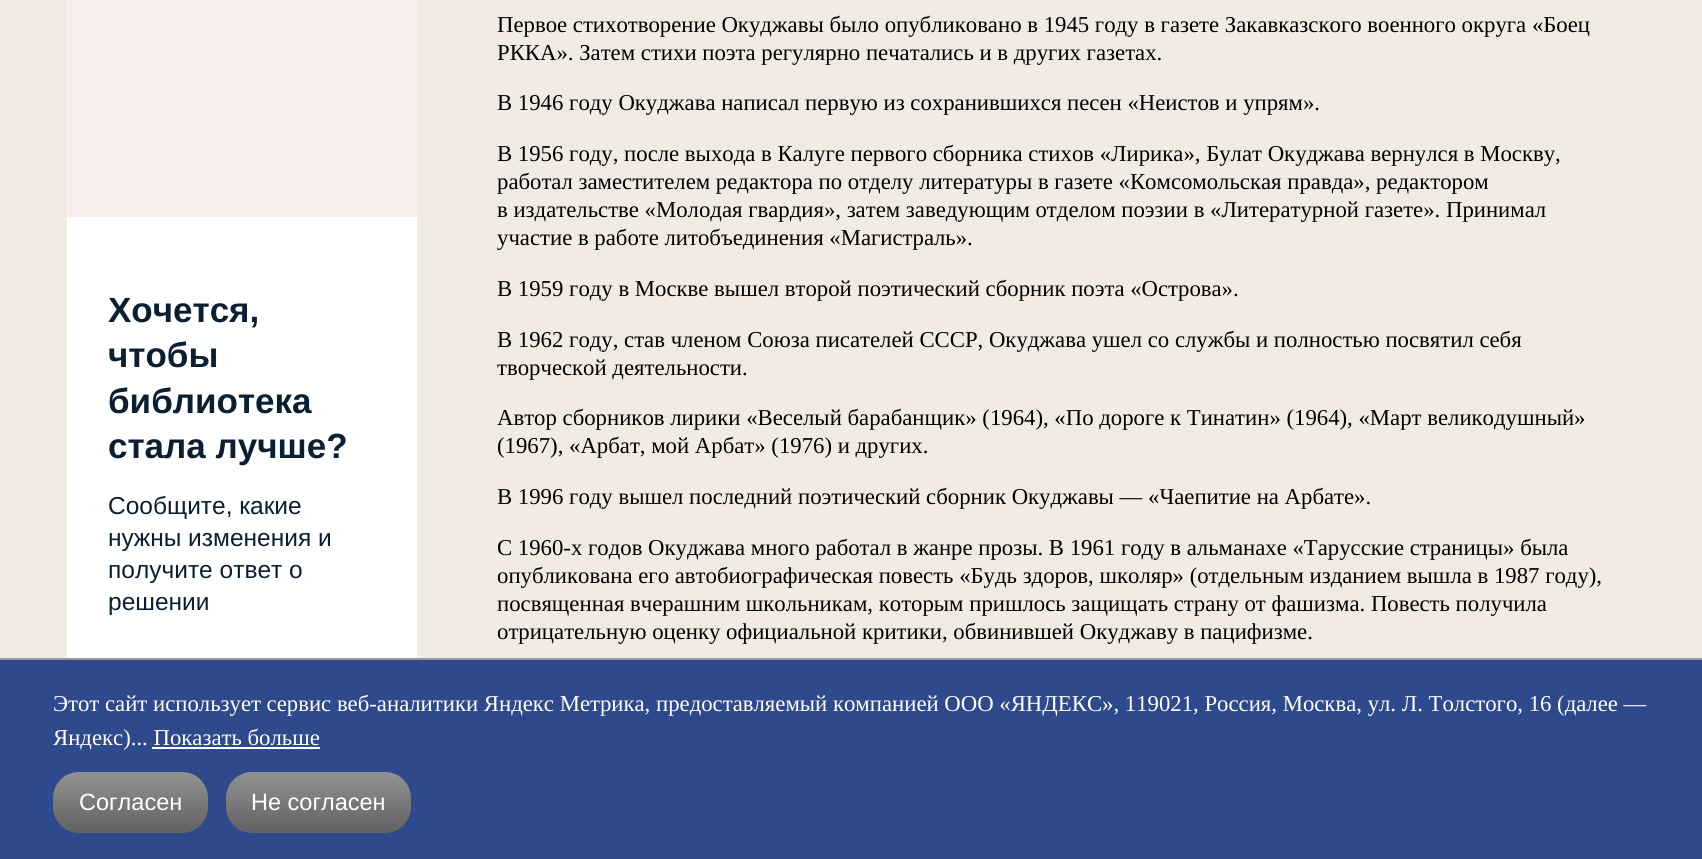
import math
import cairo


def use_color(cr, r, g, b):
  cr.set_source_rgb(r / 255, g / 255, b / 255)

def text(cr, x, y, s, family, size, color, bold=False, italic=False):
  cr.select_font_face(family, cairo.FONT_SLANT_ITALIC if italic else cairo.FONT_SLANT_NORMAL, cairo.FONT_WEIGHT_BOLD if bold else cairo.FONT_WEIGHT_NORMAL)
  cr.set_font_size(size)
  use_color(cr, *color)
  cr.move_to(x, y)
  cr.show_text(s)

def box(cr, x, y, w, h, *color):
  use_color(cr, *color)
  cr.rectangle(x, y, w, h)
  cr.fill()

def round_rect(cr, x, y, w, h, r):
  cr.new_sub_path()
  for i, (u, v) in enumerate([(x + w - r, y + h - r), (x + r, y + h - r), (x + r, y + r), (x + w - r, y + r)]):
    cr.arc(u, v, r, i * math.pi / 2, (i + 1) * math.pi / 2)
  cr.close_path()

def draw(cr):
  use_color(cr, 241, 235, 228)
  cr.paint()
  box(cr, 67, 217, 350, 441, 255, 255, 255)
  box(cr, 67, 0, 350, 217, 248, 239, 236)
  box(cr, 0, 660, 1702, 199, 47, 73, 141)
  box(cr, 0, 658, 1702, 2, 153, 153, 153)
  box(cr, 152, 747, 168, 2, 255, 255, 255)
  gradient = cairo.LinearGradient(130, 772, 130, 833)
  gradient.add_color_stop_rgba(0, 0.576, 0.576, 0.576, 1)
  gradient.add_color_stop_rgba(0.5, 0.478, 0.478, 0.478, 1)
  gradient.add_color_stop_rgba(1, 0.38, 0.38, 0.38, 1)
  cr.set_source(gradient)
  round_rect(cr, 53, 772, 155, 61, 26)
  cr.fill()
  gradient = cairo.LinearGradient(319, 772, 319, 833)
  gradient.add_color_stop_rgba(0, 0.576, 0.576, 0.576, 1)
  gradient.add_color_stop_rgba(0.5, 0.478, 0.478, 0.478, 1)
  gradient.add_color_stop_rgba(1, 0.38, 0.38, 0.38, 1)
  cr.set_source(gradient)
  round_rect(cr, 226, 772, 185, 61, 26)
  cr.fill()
  text(cr, 108, 322, "Хочется,", "Liberation Sans", 35, (11, 31, 51), bold=True)
  text(cr, 108, 367, "чтобы", "Liberation Sans", 35, (11, 31, 51), bold=True)
  text(cr, 108, 413, "библиотека", "Liberation Sans", 35, (11, 31, 51), bold=True)
  text(cr, 108, 458, "стала лучше?", "Liberation Sans", 35, (11, 31, 51), bold=True)
  text(cr, 108, 514, "Сообщите, какие", "Liberation Sans", 24.5, (11, 31, 51))
  text(cr, 108, 546, "нужны изменения и", "Liberation Sans", 24.5, (11, 31, 51))
  text(cr, 108, 578, "получите ответ о", "Liberation Sans", 24.5, (11, 31, 51))
  text(cr, 108, 610, "решении", "Liberation Sans", 24.5, (11, 31, 51))
  text(cr, 497, 32, "Первое стихотворение Окуджавы было опубликовано в 1945 году в газете Закавказского военного округа «Боец", "Liberation Serif", 22.75, (0, 0, 0))
  text(cr, 497, 60, "РККА». Затем стихи поэта регулярно печатались и в других газетах.", "Liberation Serif", 22.75, (0, 0, 0))
  text(cr, 497, 110, "В 1946 году Окуджава написал первую из сохранившихся песен «Неистов и упрям».", "Liberation Serif", 22.75, (0, 0, 0))
  text(cr, 497, 161, "В 1956 году, после выхода в Калуге первого сборника стихов «Лирика», Булат Окуджава вернулся в Москву,", "Liberation Serif", 22.75, (0, 0, 0))
  text(cr, 497, 189, "работал заместителем редактора по отделу литературы в газете «Комсомольская правда», редактором", "Liberation Serif", 22.75, (0, 0, 0))
  text(cr, 497, 217, "в издательстве «Молодая гвардия», затем заведующим отделом поэзии в «Литературной газете». Принимал", "Liberation Serif", 22.75, (0, 0, 0))
  text(cr, 497, 245, "участие в работе литобъединения «Магистраль».", "Liberation Serif", 22.75, (0, 0, 0))
  text(cr, 497, 296, "В 1959 году в Москве вышел второй поэтический сборник поэта «Острова».", "Liberation Serif", 22.75, (0, 0, 0))
  text(cr, 497, 347, "В 1962 году, став членом Союза писателей СССР, Окуджава ушел со службы и полностью посвятил себя", "Liberation Serif", 22.75, (0, 0, 0))
  text(cr, 497, 375, "творческой деятельности.", "Liberation Serif", 22.75, (0, 0, 0))
  text(cr, 497, 425, "Автор сборников лирики «Веселый барабанщик» (1964), «По дороге к Тинатин» (1964), «Март великодушный»", "Liberation Serif", 22.75, (0, 0, 0))
  text(cr, 497, 453, "(1967), «Арбат, мой Арбат» (1976) и других.", "Liberation Serif", 22.75, (0, 0, 0))
  text(cr, 497, 504, "В 1996 году вышел последний поэтический сборник Окуджавы — «Чаепитие на Арбате».", "Liberation Serif", 22.75, (0, 0, 0))
  text(cr, 497, 555, "C 1960-х годов Окуджава много работал в жанре прозы. В 1961 году в альманахе «Тарусские страницы» была", "Liberation Serif", 22.75, (0, 0, 0))
  text(cr, 497, 583, "опубликована его автобиографическая повесть «Будь здоров, школяр» (отдельным изданием вышла в 1987 году),", "Liberation Serif", 22.75, (0, 0, 0))
  text(cr, 497, 611, "посвященная вчерашним школьникам, которым пришлось защищать страну от фашизма. Повесть получила", "Liberation Serif", 22.75, (0, 0, 0))
  text(cr, 497, 639, "отрицательную оценку официальной критики, обвинившей Окуджаву в пацифизме.", "Liberation Serif", 22.75, (0, 0, 0))
  text(cr, 53, 711, "Этот сайт использует сервис веб-аналитики Яндекс Метрика, предоставляемый компанией ООО «ЯНДЕКС», 119021, Россия, Москва, ул. Л. Толстого, 16 (далее —", "Liberation Serif", 22.75, (255, 255, 255))
  text(cr, 53, 745, "Яндекс)... Показать больше", "Liberation Serif", 22.75, (255, 255, 255))
  text(cr, 79, 810, "Согласен", "Liberation Sans", 23.5, (255, 255, 255))
  text(cr, 251, 810, "Не согласен", "Liberation Sans", 23.5, (255, 255, 255))


surface = cairo.ImageSurface(cairo.FORMAT_RGB24, 1702, 859)
cr = cairo.Context(surface)
options = cairo.FontOptions()
options.set_hint_metrics(cairo.HINT_METRICS_OFF)
options.set_hint_style(cairo.HINT_STYLE_NONE)
cr.set_font_options(options)
cr.set_miter_limit(4)
draw(cr)
surface.write_to_png("out.png")
